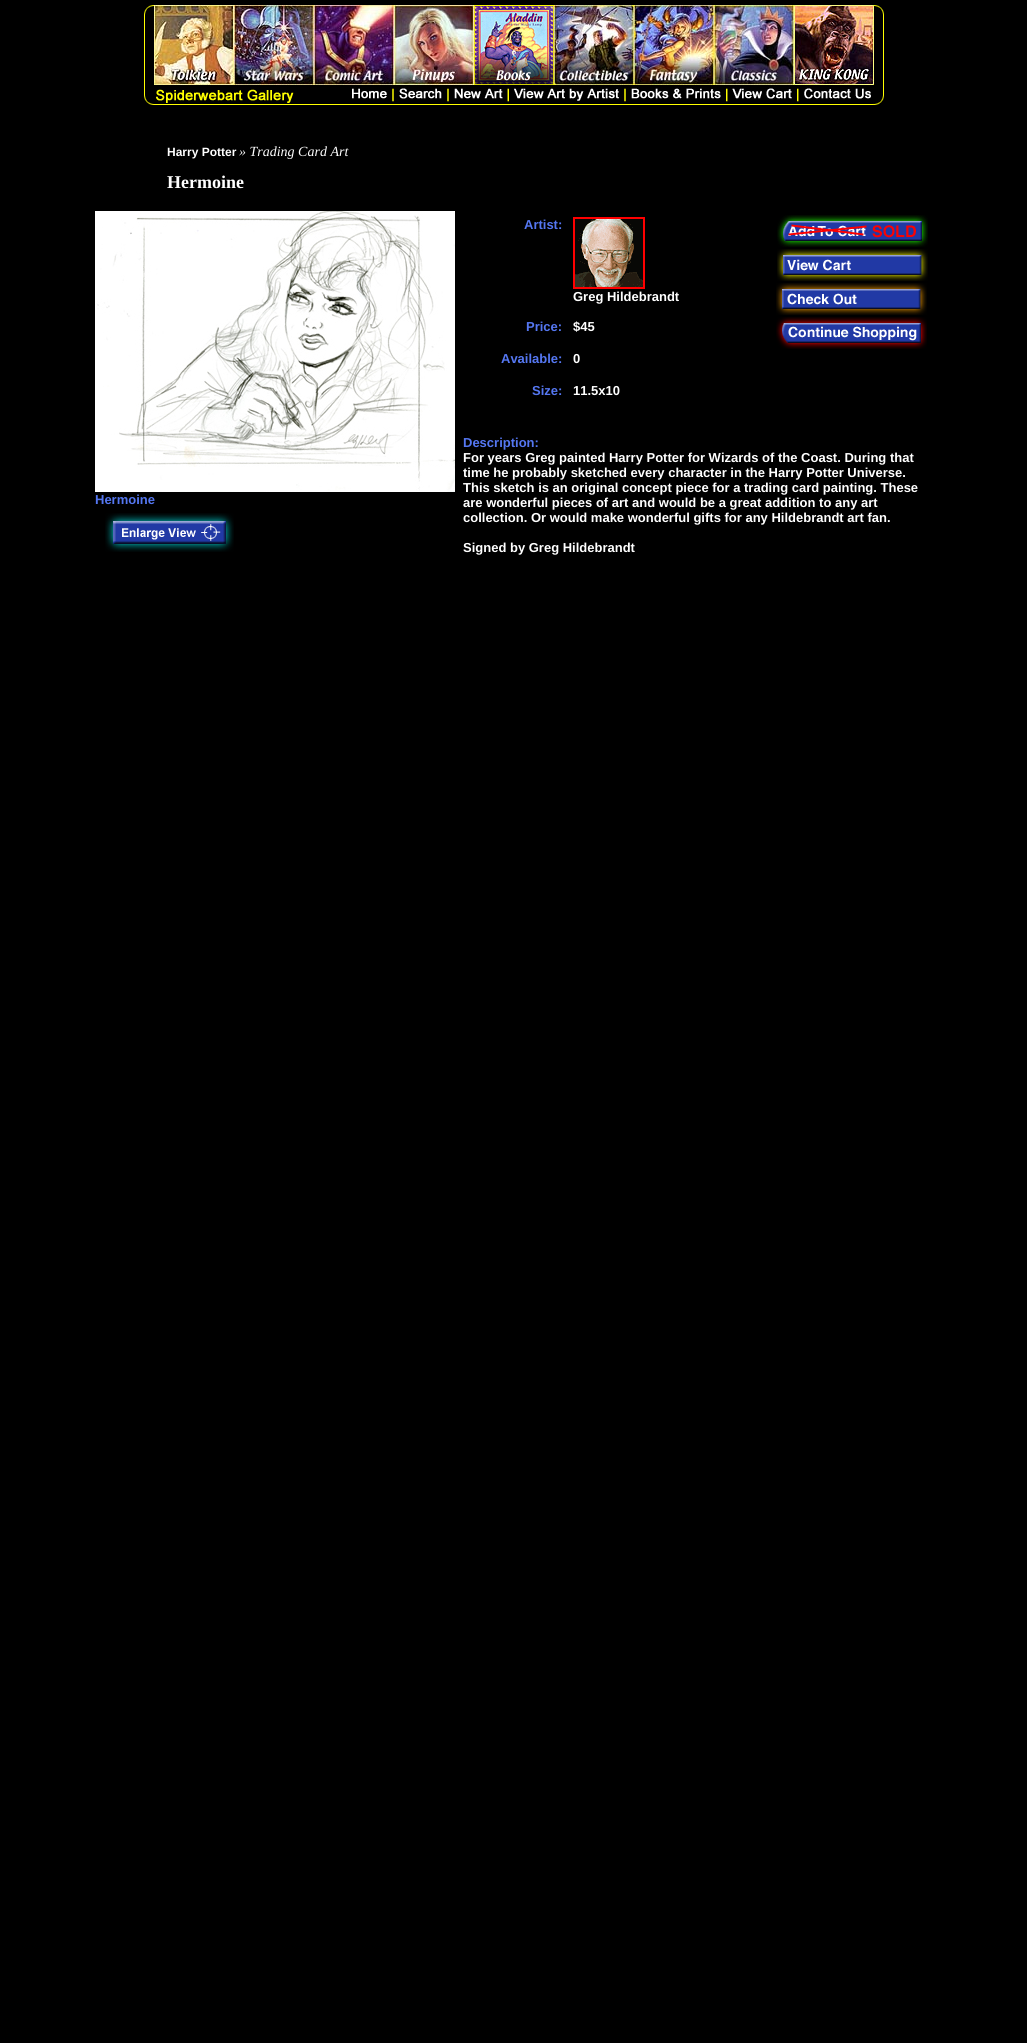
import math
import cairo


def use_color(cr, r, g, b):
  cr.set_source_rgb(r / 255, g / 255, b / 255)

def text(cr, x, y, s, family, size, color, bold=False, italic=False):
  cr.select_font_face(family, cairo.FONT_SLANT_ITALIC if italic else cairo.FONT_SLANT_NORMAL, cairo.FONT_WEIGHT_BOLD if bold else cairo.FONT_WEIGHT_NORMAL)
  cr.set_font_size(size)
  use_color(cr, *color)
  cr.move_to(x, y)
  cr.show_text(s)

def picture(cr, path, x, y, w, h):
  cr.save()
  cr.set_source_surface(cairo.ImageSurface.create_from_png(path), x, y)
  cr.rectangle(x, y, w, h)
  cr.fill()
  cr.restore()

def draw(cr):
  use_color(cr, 0, 0, 0)
  cr.paint()
  picture(cr, "img_01.png", 144, 5, 10, 100)
  picture(cr, "img_02.png", 154, 5, 80, 80)
  picture(cr, "img_03.png", 234, 5, 80, 80)
  picture(cr, "img_04.png", 314, 5, 80, 80)
  picture(cr, "img_05.png", 394, 5, 80, 80)
  picture(cr, "img_06.png", 474, 5, 80, 80)
  picture(cr, "img_07.png", 554, 5, 80, 80)
  picture(cr, "img_08.png", 634, 5, 80, 80)
  picture(cr, "img_09.png", 714, 5, 80, 80)
  picture(cr, "img_10.png", 794, 5, 80, 80)
  picture(cr, "img_11.png", 154, 88, 720, 17)
  picture(cr, "img_12.png", 874, 5, 10, 100)
  picture(cr, "img_13.png", 95, 211, 360, 281)
  picture(cr, "img_14.png", 105, 513, 129, 39)
  picture(cr, "img_15.png", 573, 217, 72, 72)
  picture(cr, "img_16.png", 777, 215, 151, 32)
  picture(cr, "img_17.png", 777, 249, 151, 32)
  picture(cr, "img_18.png", 776, 283, 151, 32)
  picture(cr, "img_19.png", 776, 317, 151, 32)
  text(cr, 167, 156, "Harry Potter", "Liberation Sans", 12, (255, 255, 255), bold=True)
  text(cr, 239, 156, "» Trading Card Art", "Liberation Serif", 14, (255, 255, 255), italic=True)
  text(cr, 167, 188, "Hermoine", "Liberation Serif", 18, (255, 255, 255), bold=True)
  text(cr, 95, 504, "Hermoine", "Liberation Sans", 13, (85, 119, 242), bold=True)
  text(cr, 524, 229, "Artist:", "Liberation Sans", 13, (85, 119, 242), bold=True)
  text(cr, 526, 331, "Price:", "Liberation Sans", 13, (85, 119, 242), bold=True)
  text(cr, 501, 363, "Available:", "Liberation Sans", 13, (85, 119, 242), bold=True)
  text(cr, 532, 395, "Size:", "Liberation Sans", 13, (85, 119, 242), bold=True)
  text(cr, 573, 301, "Greg Hildebrandt", "Liberation Sans", 13, (255, 255, 255), bold=True)
  text(cr, 573, 331, "$45", "Liberation Sans", 13, (255, 255, 255), bold=True)
  text(cr, 573, 363, "0", "Liberation Sans", 13, (255, 255, 255), bold=True)
  text(cr, 573, 395, "11.5x10", "Liberation Sans", 13, (255, 255, 255), bold=True)
  text(cr, 463, 447, "Description:", "Liberation Sans", 13, (85, 119, 242), bold=True)
  text(cr, 463, 462, "For years Greg painted Harry Potter for Wizards of the Coast. During that", "Liberation Sans", 13, (255, 255, 255), bold=True)
  text(cr, 463, 477, "time he probably sketched every character in the Harry Potter Universe.", "Liberation Sans", 13, (255, 255, 255), bold=True)
  text(cr, 463, 492, "This sketch is an original concept piece for a trading card painting. These", "Liberation Sans", 13, (255, 255, 255), bold=True)
  text(cr, 463, 507, "are wonderful pieces of art and would be a great addition to any art", "Liberation Sans", 13, (255, 255, 255), bold=True)
  text(cr, 463, 522, "collection. Or would make wonderful gifts for any Hildebrandt art fan.", "Liberation Sans", 13, (255, 255, 255), bold=True)
  text(cr, 463, 552, "Signed by Greg Hildebrandt", "Liberation Sans", 13, (255, 255, 255), bold=True)


surface = cairo.ImageSurface(cairo.FORMAT_RGB24, 1027, 2043)
cr = cairo.Context(surface)
options = cairo.FontOptions()
options.set_hint_metrics(cairo.HINT_METRICS_OFF)
options.set_hint_style(cairo.HINT_STYLE_NONE)
cr.set_font_options(options)
cr.set_miter_limit(4)
draw(cr)
surface.write_to_png("out.png")
